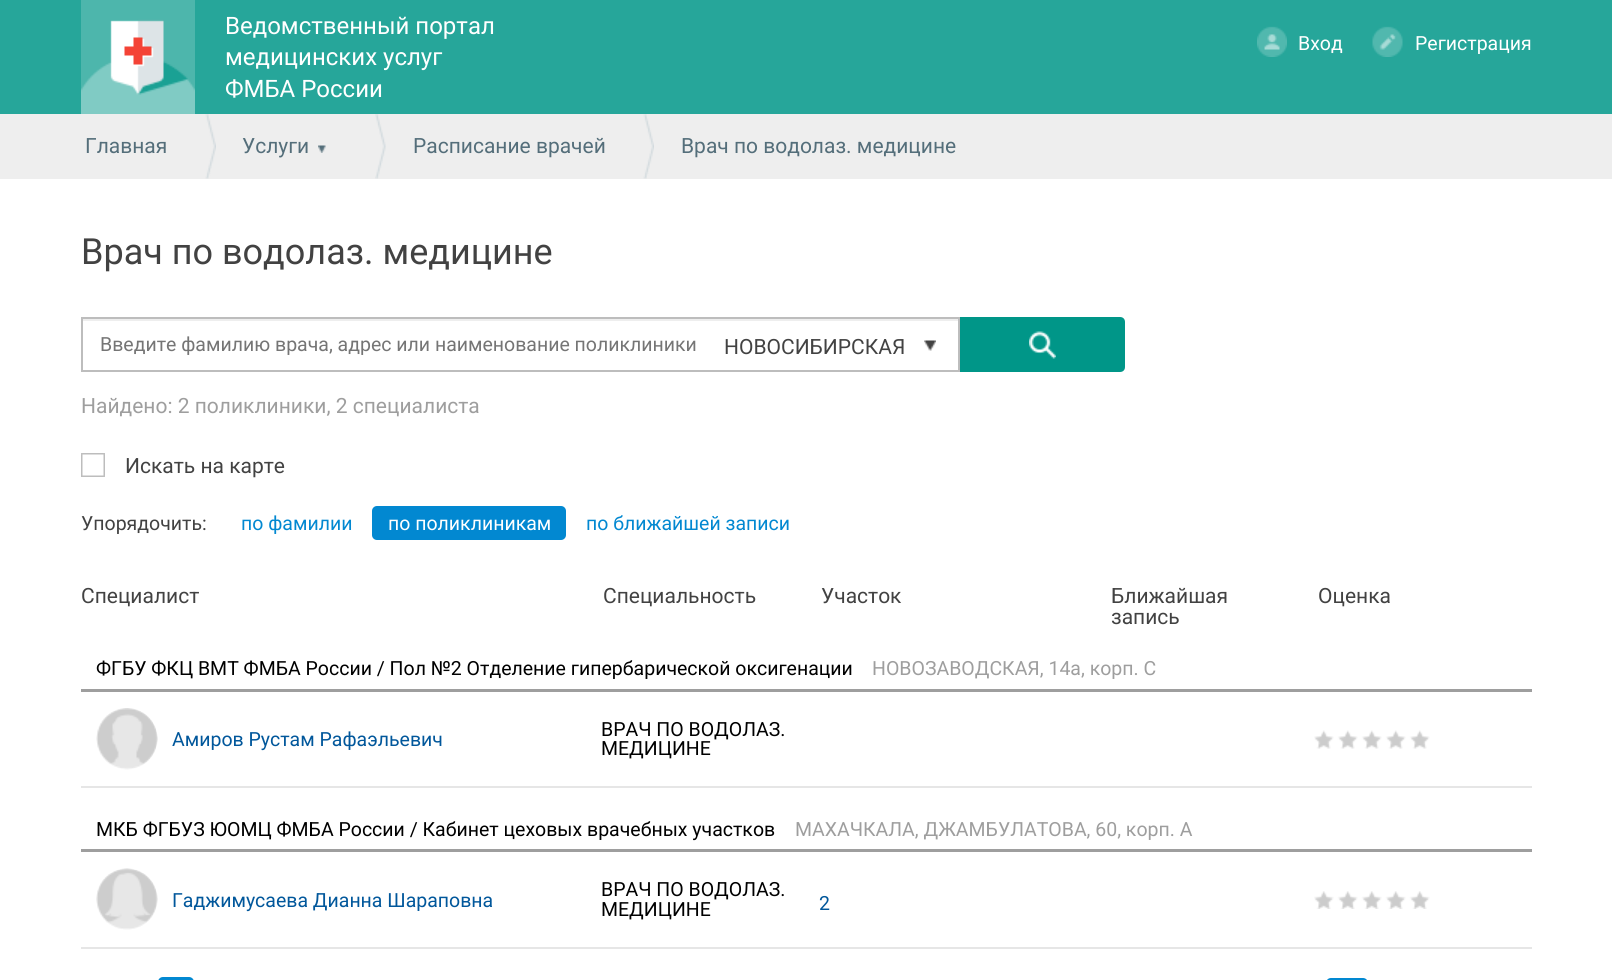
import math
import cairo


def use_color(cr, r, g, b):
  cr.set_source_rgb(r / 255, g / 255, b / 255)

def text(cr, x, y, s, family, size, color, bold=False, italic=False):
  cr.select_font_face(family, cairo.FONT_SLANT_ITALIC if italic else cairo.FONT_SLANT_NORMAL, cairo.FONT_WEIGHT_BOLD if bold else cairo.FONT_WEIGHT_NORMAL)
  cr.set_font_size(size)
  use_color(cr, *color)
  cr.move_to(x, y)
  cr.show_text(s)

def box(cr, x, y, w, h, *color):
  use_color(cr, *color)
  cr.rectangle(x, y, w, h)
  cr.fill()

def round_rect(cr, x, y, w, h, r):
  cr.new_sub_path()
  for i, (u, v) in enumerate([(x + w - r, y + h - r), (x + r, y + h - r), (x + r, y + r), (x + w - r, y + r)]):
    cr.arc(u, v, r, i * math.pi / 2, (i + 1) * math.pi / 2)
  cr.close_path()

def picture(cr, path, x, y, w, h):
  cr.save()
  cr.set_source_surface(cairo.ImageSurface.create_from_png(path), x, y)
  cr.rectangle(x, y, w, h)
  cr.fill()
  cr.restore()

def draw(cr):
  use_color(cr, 255, 255, 255)
  cr.paint()
  box(cr, 0, 0, 1612, 114, 38, 166, 154)
  picture(cr, "img_01.png", 81, 0, 114, 114)
  picture(cr, "img_02.png", 1257, 26, 30, 31)
  picture(cr, "img_03.png", 1372, 26, 31, 31)
  box(cr, 0, 114, 1612, 65, 238, 238, 238)
  picture(cr, "img_04.png", 205, 114, 11, 65)
  picture(cr, "img_05.png", 318, 145, 8, 8)
  picture(cr, "img_06.png", 375, 114, 11, 65)
  picture(cr, "img_07.png", 643, 114, 11, 65)
  box(cr, 83, 319, 876, 2, 238, 238, 238)
  cr.rectangle(82, 318, 877, 53)
  use_color(cr, 189, 189, 189)
  cr.stroke()
  picture(cr, "img_08.png", 924, 340, 12, 11)
  use_color(cr, 0, 150, 136)
  cr.new_path()
  cr.move_to(960, 317)
  cr.line_to(1120, 317)
  cr.curve_to(1123, 317, 1125, 319, 1125, 322)
  cr.line_to(1125, 367)
  cr.curve_to(1125, 370, 1123, 372, 1120, 372)
  cr.line_to(960, 372)
  cr.close_path()
  cr.fill()
  picture(cr, "img_09.png", 1029, 331, 27, 28)
  picture(cr, "img_10.png", 81, 453, 24, 24)
  use_color(cr, 2, 136, 209)
  round_rect(cr, 372, 506, 194, 34, 5)
  cr.fill()
  box(cr, 81, 689, 1451, 3, 158, 158, 158)
  box(cr, 81, 786, 1451, 2, 230, 230, 230)
  picture(cr, "img_11.png", 96, 708, 62, 62)
  picture(cr, "img_12.png", 1314, 730, 116, 19)
  box(cr, 81, 849, 1451, 3, 158, 158, 158)
  box(cr, 81, 947, 1451, 2, 230, 230, 230)
  picture(cr, "img_13.png", 96, 868, 62, 62)
  picture(cr, "img_14.png", 1314, 891, 116, 18)
  use_color(cr, 2, 136, 209)
  round_rect(cr, 158, 977, 36, 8, 5)
  cr.fill()
  round_rect(cr, 1326, 978, 42, 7, 5)
  cr.fill()
  text(cr, 225, 34, "Ведомственный портал", "Roboto", 24, (255, 255, 255))
  text(cr, 225, 65, "медицинских услуг", "Roboto", 24, (255, 255, 255))
  text(cr, 225, 97, "ФМБА России", "Roboto", 24, (255, 255, 255))
  text(cr, 1298, 50, "Вход", "Roboto", 19.5, (255, 255, 255))
  text(cr, 1415, 50, "Регистрация", "Roboto", 19.5, (255, 255, 255))
  text(cr, 85, 153, "Главная", "Roboto", 21, (84, 110, 122))
  text(cr, 242, 153, "Услуги", "Roboto", 21, (84, 110, 122))
  text(cr, 413, 153, "Расписание врачей", "Roboto", 21, (84, 110, 122))
  text(cr, 681, 153, "Врач по водолаз. медицине", "Roboto", 21, (84, 110, 122))
  text(cr, 81, 264, "Врач по водолаз. медицине", "Roboto", 36, (66, 66, 66))
  text(cr, 100, 351, "Введите фамилию врача, адрес или наименование поликлиники", "Roboto", 19.5, (117, 117, 117))
  text(cr, 724, 354, "НОВОСИБИРСКАЯ", "Roboto", 21, (66, 66, 66))
  text(cr, 81, 413, "Найдено: 2 поликлиники, 2 специалиста", "Roboto", 21, (158, 158, 158))
  text(cr, 125, 473, "Искать на карте", "Roboto", 21, (66, 66, 66))
  text(cr, 81, 530, "Упорядочить:", "Roboto", 19.5, (66, 66, 66))
  text(cr, 241, 530, "по фамилии", "Roboto", 19.5, (2, 136, 209))
  text(cr, 388, 530, "по поликлиникам", "Roboto", 19.5, (255, 255, 255))
  text(cr, 586, 530, "по ближайшей записи", "Roboto", 19.5, (2, 136, 209))
  text(cr, 81, 603, "Специалист", "Roboto", 21, (66, 66, 66))
  text(cr, 603, 603, "Специальность", "Roboto", 21, (66, 66, 66))
  text(cr, 821, 603, "Участок", "Roboto", 21, (66, 66, 66))
  text(cr, 1111, 603, "Ближайшая", "Roboto", 21, (66, 66, 66))
  text(cr, 1111, 624, "запись", "Roboto", 21, (66, 66, 66))
  text(cr, 1318, 603, "Оценка", "Roboto", 21, (66, 66, 66))
  text(cr, 96, 675, "ФГБУ ФКЦ ВМТ ФМБА России / Пол №2 Отделение гипербарической оксигенации", "Roboto", 19.5, (0, 0, 0))
  text(cr, 872, 675, "НОВОЗАВОДСКАЯ, 14а, корп. С", "Roboto", 19.5, (158, 158, 158))
  text(cr, 172, 746, "Амиров Рустам Рафаэльевич", "Roboto", 19.5, (1, 87, 155))
  text(cr, 601, 736, "ВРАЧ ПО ВОДОЛАЗ.", "Roboto", 19.5, (0, 0, 0))
  text(cr, 601, 755, "МЕДИЦИНЕ", "Roboto", 19.5, (0, 0, 0))
  text(cr, 96, 836, "МКБ ФГБУЗ ЮОМЦ ФМБА России / Кабинет цеховых врачебных участков", "Roboto", 19.5, (0, 0, 0))
  text(cr, 795, 836, "МАХАЧКАЛА, ДЖАМБУЛАТОВА, 60, корп. А", "Roboto", 19.5, (158, 158, 158))
  text(cr, 172, 907, "Гаджимусаева Дианна Шараповна", "Roboto", 19.5, (1, 87, 155))
  text(cr, 601, 896, "ВРАЧ ПО ВОДОЛАЗ.", "Roboto", 19.5, (0, 0, 0))
  text(cr, 601, 916, "МЕДИЦИНЕ", "Roboto", 19.5, (0, 0, 0))
  text(cr, 819, 910, "2", "Roboto", 19.5, (1, 87, 155))


surface = cairo.ImageSurface(cairo.FORMAT_RGB24, 1612, 980)
cr = cairo.Context(surface)
options = cairo.FontOptions()
options.set_hint_metrics(cairo.HINT_METRICS_OFF)
options.set_hint_style(cairo.HINT_STYLE_NONE)
cr.set_font_options(options)
cr.set_miter_limit(4)
draw(cr)
surface.write_to_png("out.png")
